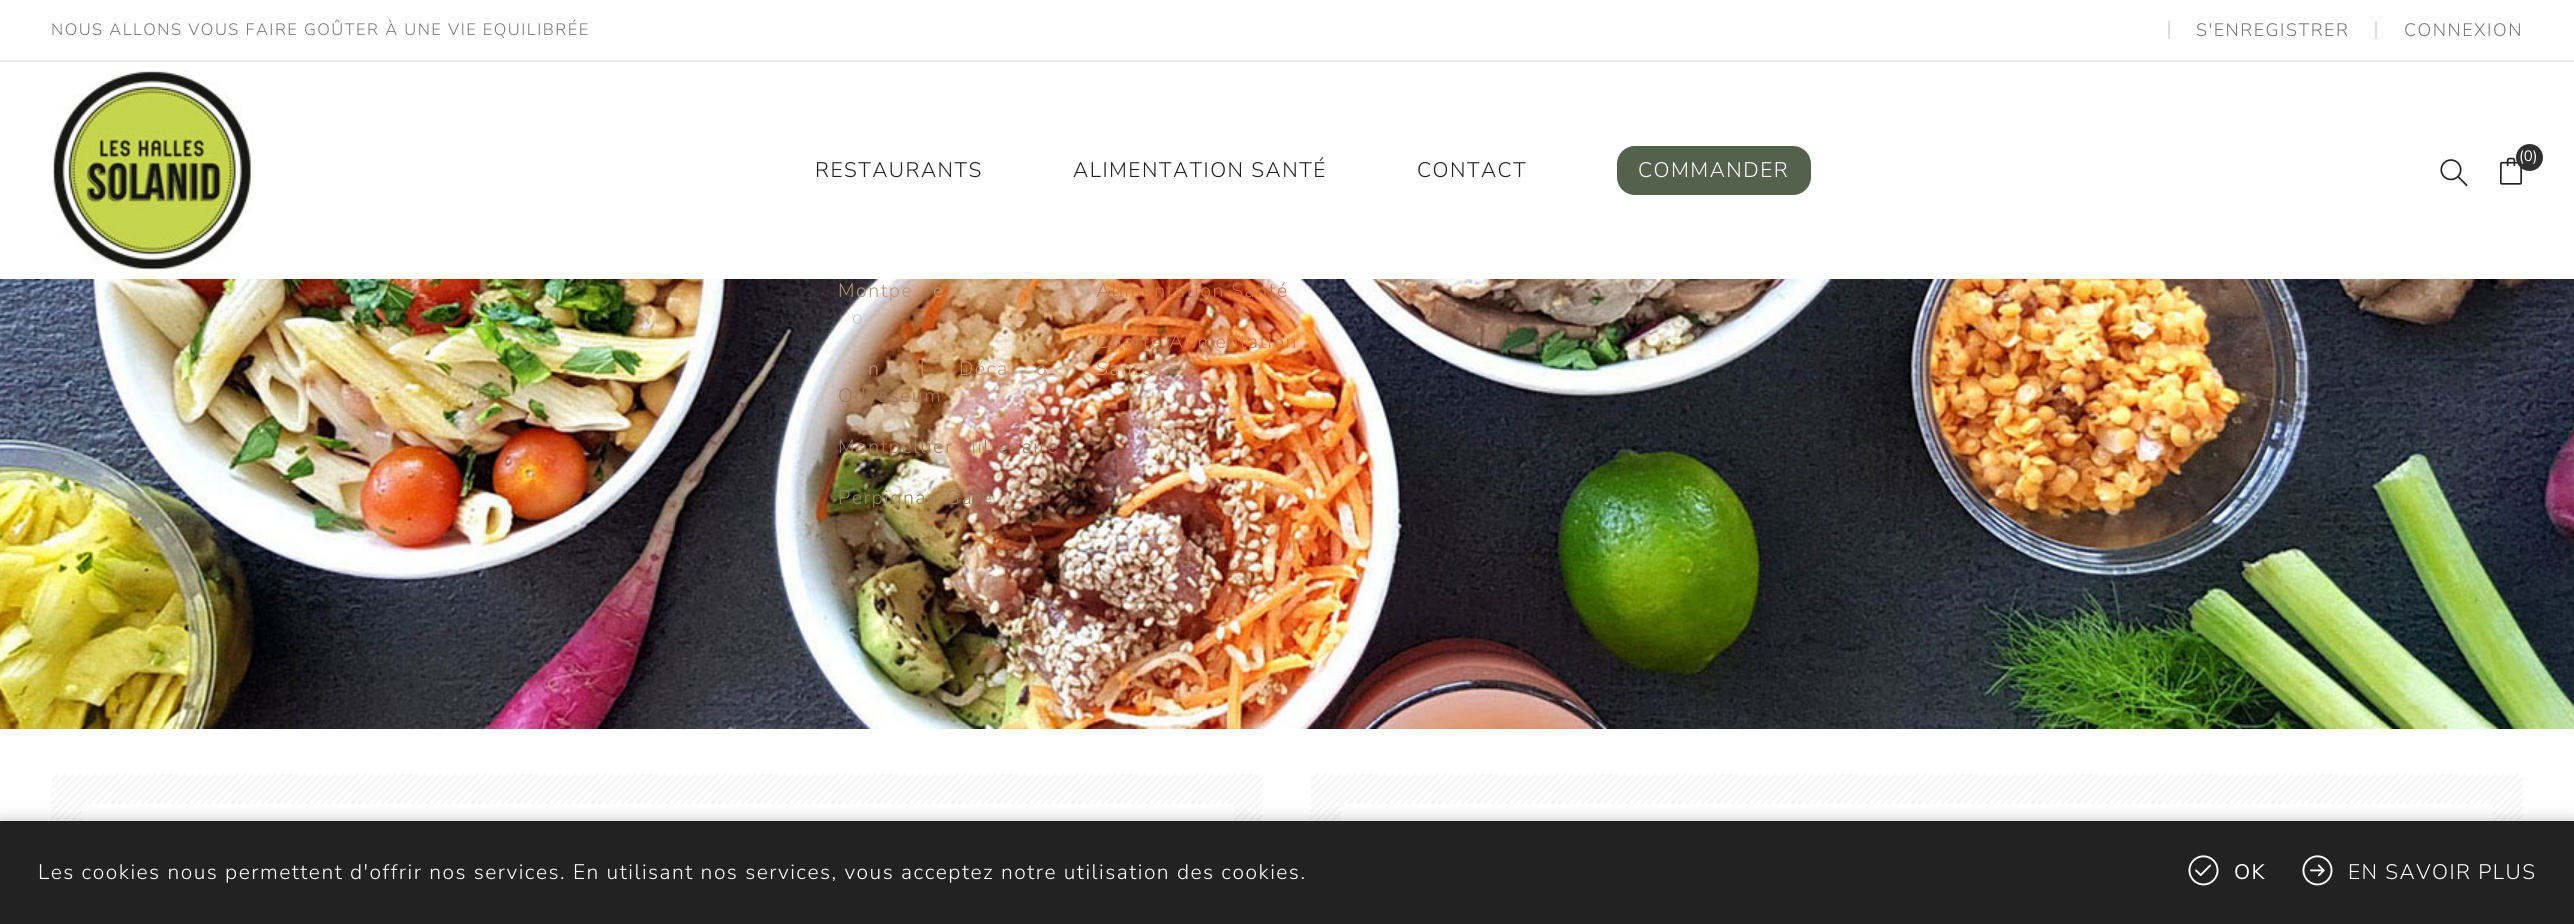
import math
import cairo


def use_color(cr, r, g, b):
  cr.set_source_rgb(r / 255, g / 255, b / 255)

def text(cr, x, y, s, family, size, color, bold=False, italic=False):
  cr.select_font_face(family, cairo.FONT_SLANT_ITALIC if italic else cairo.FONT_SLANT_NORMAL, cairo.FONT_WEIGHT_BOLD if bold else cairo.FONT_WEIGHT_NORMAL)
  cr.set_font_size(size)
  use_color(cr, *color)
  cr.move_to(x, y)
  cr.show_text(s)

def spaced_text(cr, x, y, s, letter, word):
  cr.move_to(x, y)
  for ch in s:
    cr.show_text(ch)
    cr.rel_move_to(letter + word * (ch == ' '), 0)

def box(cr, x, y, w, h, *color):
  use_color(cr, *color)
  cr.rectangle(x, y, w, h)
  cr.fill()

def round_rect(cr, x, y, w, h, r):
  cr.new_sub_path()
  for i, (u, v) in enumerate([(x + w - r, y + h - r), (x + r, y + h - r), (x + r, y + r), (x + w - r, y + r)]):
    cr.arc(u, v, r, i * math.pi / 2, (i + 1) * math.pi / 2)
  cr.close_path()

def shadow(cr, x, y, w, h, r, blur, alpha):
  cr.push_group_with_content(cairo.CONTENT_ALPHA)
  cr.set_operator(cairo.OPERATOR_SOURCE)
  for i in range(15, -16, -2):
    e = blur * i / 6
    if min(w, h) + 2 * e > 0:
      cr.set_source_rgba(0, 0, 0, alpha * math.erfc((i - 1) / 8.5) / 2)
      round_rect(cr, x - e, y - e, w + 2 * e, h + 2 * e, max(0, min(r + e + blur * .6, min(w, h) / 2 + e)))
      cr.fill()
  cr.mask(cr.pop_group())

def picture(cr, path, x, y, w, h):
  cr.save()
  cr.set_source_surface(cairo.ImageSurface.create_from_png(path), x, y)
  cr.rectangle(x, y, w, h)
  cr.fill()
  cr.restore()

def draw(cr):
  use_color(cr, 255, 255, 255)
  cr.paint()
  box(cr, 0, 60, 2574, 2, 235, 235, 235)
  box(cr, 2168, 21, 2, 18, 221, 221, 221)
  box(cr, 2375, 21, 2, 18, 221, 221, 221)
  picture(cr, "img_01.png", 51, 70, 203, 202)
  use_color(cr, 84, 97, 77)
  round_rect(cr, 1617, 146, 194, 49, 18)
  cr.fill()
  picture(cr, "img_02.png", 2500, 157, 22, 28)
  use_color(cr, 48, 48, 48)
  cr.arc(2529.5, 157.5, 13.5, 0, 2 * math.pi)
  cr.fill()
  picture(cr, "img_03.png", 2440, 159, 28, 28)
  picture(cr, "img_04.png", 0, 279, 2574, 450)
  picture(cr, "img_05.png", 51, 774, 1212, 47)
  box(cr, 81, 804, 1152, 17, 255, 255, 255)
  picture(cr, "img_06.png", 1311, 774, 1212, 47)
  box(cr, 1341, 804, 1152, 17, 255, 255, 255)
  use_color(cr, 0, 0, 0)
  shadow(cr, 0, 821, 2574, 103, 0, 7.5, 0.25)
  box(cr, 0, 821, 2574, 103, 34, 34, 34)
  picture(cr, "img_07.png", 2188, 855, 31, 31)
  picture(cr, "img_08.png", 2302, 855, 31, 31)
  cr.select_font_face("Nunito Sans Light")
  cr.set_font_size(16.5)
  use_color(cr, 119, 119, 119)
  spaced_text(cr, 51, 35, "NOUS ALLONS VOUS FAIRE GOÛTER À UNE VIE EQUILIBRÉE", 1.5, 0)
  cr.set_font_size(18)
  spaced_text(cr, 2196, 36, "S'ENREGISTRER", 1.5, 0)
  spaced_text(cr, 2404, 36, "CONNEXION", 1.5, 0)
  cr.set_font_size(21)
  use_color(cr, 34, 34, 34)
  spaced_text(cr, 815, 177, "RESTAURANTS", 1.5, 0)
  cr.set_font_size(19.5)
  use_color(cr, 186, 148, 120)
  spaced_text(cr, 838, 297, "Montpe", 1.5, 0)
  spaced_text(cr, 933, 297, "e", 1.5, 0)
  spaced_text(cr, 1026, 297, "t", 1.5, 0)
  use_color(cr, 201, 194, 192)
  spaced_text(cr, 852, 324, "o", 1.5, 0)
  use_color(cr, 189, 147, 114)
  spaced_text(cr, 868, 375, "n", 1.5, 0)
  spaced_text(cr, 920, 375, "l", 1.5, 0)
  spaced_text(cr, 959, 375, "Déca", 1.5, 0)
  spaced_text(cr, 1036, 375, "o", 1.5, 0)
  use_color(cr, 162, 119, 85)
  spaced_text(cr, 838, 402, "Odysseum", 1.5, 0)
  use_color(cr, 167, 123, 99)
  spaced_text(cr, 838, 453, "Montpellier Millénaire", 1.5, 0)
  use_color(cr, 149, 130, 91)
  spaced_text(cr, 838, 504, "Perpignan Gare", 1.5, 0)
  cr.set_font_size(21)
  use_color(cr, 34, 34, 34)
  spaced_text(cr, 1073, 177, "ALIMENTATION SANTÉ", 1.5, 0)
  cr.set_font_size(19.5)
  use_color(cr, 204, 114, 72)
  spaced_text(cr, 1096, 297, "Alimentation Santé", 1.5, 0)
  use_color(cr, 210, 121, 72)
  spaced_text(cr, 1096, 348, "Charte Alimentation", 1.5, 0)
  use_color(cr, 208, 146, 106)
  spaced_text(cr, 1096, 375, "Santé", 1.5, 0)
  cr.set_font_size(21)
  use_color(cr, 34, 34, 34)
  spaced_text(cr, 1417, 177, "CONTACT", 1.5, 0)
  use_color(cr, 255, 255, 255)
  spaced_text(cr, 1638, 177, "COMMANDER", 1.5, 0)
  text(cr, 2519, 161, "(0)", "Nunito Sans", 15, (255, 255, 255))
  cr.select_font_face("Nunito Sans Light")
  cr.set_font_size(21)
  spaced_text(cr, 38, 879, "Les cookies nous permettent d'offrir nos services. En utilisant nos services, vous acceptez notre utilisation des cookies.", 1.5, 0)
  cr.select_font_face("Nunito Sans")
  spaced_text(cr, 2234, 879, "OK", 1.5, 0)
  cr.select_font_face("Nunito Sans Light")
  spaced_text(cr, 2348, 879, "EN SAVOIR PLUS", 1.5, 0)


surface = cairo.ImageSurface(cairo.FORMAT_RGB24, 2574, 924)
cr = cairo.Context(surface)
options = cairo.FontOptions()
options.set_hint_metrics(cairo.HINT_METRICS_OFF)
options.set_hint_style(cairo.HINT_STYLE_NONE)
cr.set_font_options(options)
cr.set_miter_limit(4)
draw(cr)
surface.write_to_png("out.png")
